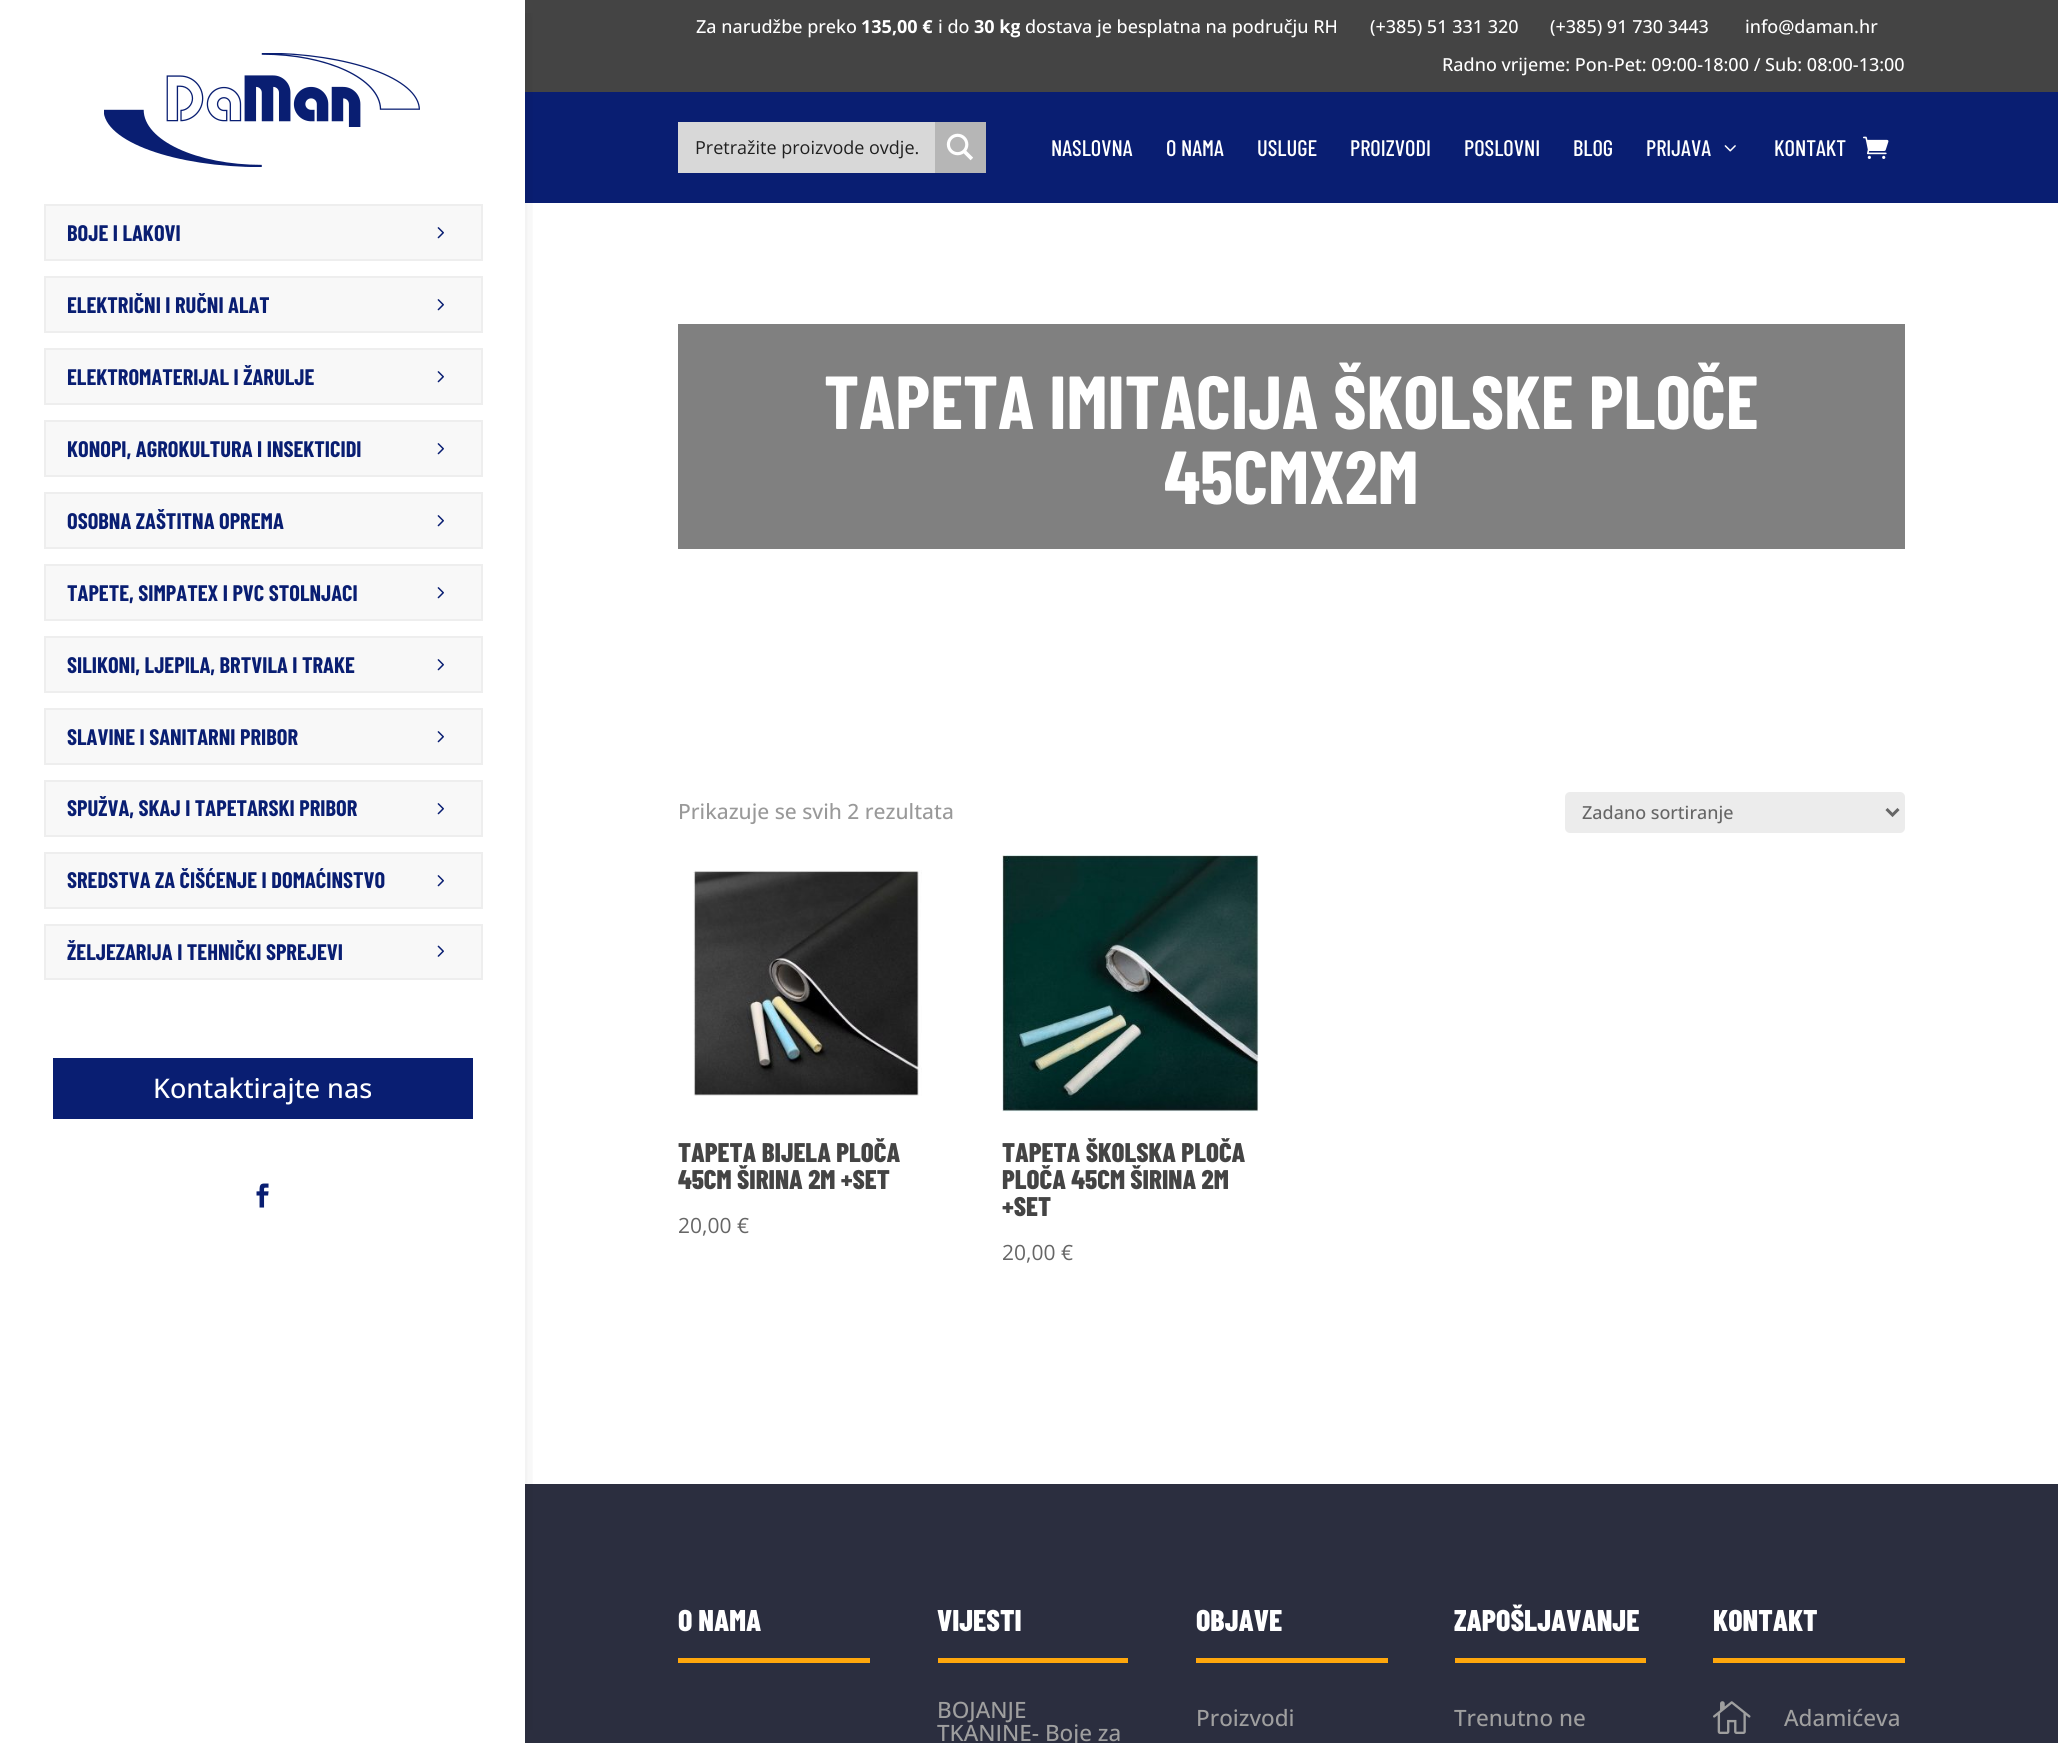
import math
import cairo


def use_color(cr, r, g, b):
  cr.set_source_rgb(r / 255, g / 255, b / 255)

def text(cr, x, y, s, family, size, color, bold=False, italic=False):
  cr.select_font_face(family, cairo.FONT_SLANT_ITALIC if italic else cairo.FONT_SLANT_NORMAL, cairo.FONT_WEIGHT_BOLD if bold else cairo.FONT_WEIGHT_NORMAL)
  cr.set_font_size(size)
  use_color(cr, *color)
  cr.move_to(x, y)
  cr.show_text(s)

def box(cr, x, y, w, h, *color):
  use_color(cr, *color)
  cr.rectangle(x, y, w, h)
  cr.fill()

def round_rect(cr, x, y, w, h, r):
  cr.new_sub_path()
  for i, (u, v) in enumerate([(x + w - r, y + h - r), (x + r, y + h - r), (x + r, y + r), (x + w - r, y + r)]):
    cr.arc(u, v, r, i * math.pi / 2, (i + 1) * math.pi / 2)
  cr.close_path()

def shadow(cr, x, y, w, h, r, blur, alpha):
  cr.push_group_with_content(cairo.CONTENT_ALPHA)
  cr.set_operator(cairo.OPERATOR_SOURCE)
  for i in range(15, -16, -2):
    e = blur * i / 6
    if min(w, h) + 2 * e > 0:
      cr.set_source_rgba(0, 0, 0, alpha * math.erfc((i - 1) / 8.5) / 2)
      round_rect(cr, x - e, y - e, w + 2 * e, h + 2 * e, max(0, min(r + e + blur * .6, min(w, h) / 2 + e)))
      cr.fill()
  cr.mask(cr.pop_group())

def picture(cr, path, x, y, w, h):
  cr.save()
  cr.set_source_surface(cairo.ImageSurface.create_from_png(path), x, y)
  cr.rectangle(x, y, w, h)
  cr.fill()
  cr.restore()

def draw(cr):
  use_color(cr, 255, 255, 255)
  cr.paint()
  box(cr, 525, 0, 1533, 92, 68, 68, 68)
  box(cr, 525, 92, 1533, 111, 9, 30, 114)
  box(cr, 678, 122, 257, 51, 216, 216, 216)
  box(cr, 935, 122, 51, 51, 182, 182, 182)
  picture(cr, "img_01.png", 946, 133, 27, 28)
  picture(cr, "img_02.png", 1724, 145, 12, 7)
  picture(cr, "img_03.png", 1863, 136, 26, 23)
  box(cr, 525, 1484, 1533, 259, 43, 46, 63)
  cr.save()
  cr.rectangle(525, 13, 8, 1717)
  cr.clip()
  use_color(cr, 0, 0, 0)
  shadow(cr, 15, 15, 495, 1713, 0, 15, 0.3)
  cr.restore()
  picture(cr, "img_04.png", 104, 53, 316, 114)
  use_color(cr, 248, 248, 248)
  cr.rectangle(45, 205, 437, 55)
  cr.fill_preserve()
  use_color(cr, 238, 238, 238)
  cr.stroke()
  picture(cr, "img_05.png", 437, 227, 7, 12)
  use_color(cr, 248, 248, 248)
  cr.rectangle(45, 277, 437, 55)
  cr.fill_preserve()
  use_color(cr, 238, 238, 238)
  cr.stroke()
  picture(cr, "img_05.png", 437, 299, 7, 12)
  use_color(cr, 248, 248, 248)
  cr.rectangle(45, 349, 437, 55)
  cr.fill_preserve()
  use_color(cr, 238, 238, 238)
  cr.stroke()
  picture(cr, "img_05.png", 437, 371, 7, 12)
  use_color(cr, 248, 248, 248)
  cr.rectangle(45, 421, 437, 55)
  cr.fill_preserve()
  use_color(cr, 238, 238, 238)
  cr.stroke()
  picture(cr, "img_05.png", 437, 443, 7, 12)
  use_color(cr, 248, 248, 248)
  cr.rectangle(45, 493, 437, 55)
  cr.fill_preserve()
  use_color(cr, 238, 238, 238)
  cr.stroke()
  picture(cr, "img_05.png", 437, 515, 7, 12)
  use_color(cr, 248, 248, 248)
  cr.rectangle(45, 565, 437, 55)
  cr.fill_preserve()
  use_color(cr, 238, 238, 238)
  cr.stroke()
  picture(cr, "img_05.png", 437, 587, 7, 12)
  use_color(cr, 248, 248, 248)
  cr.rectangle(45, 637, 437, 55)
  cr.fill_preserve()
  use_color(cr, 238, 238, 238)
  cr.stroke()
  picture(cr, "img_05.png", 437, 659, 7, 12)
  use_color(cr, 248, 248, 248)
  cr.rectangle(45, 709, 437, 55)
  cr.fill_preserve()
  use_color(cr, 238, 238, 238)
  cr.stroke()
  picture(cr, "img_05.png", 437, 731, 7, 12)
  use_color(cr, 248, 248, 248)
  cr.rectangle(45, 781, 437, 55)
  cr.fill_preserve()
  use_color(cr, 238, 238, 238)
  cr.stroke()
  picture(cr, "img_05.png", 437, 803, 7, 12)
  use_color(cr, 248, 248, 248)
  cr.rectangle(45, 853, 437, 55)
  cr.fill_preserve()
  use_color(cr, 238, 238, 238)
  cr.stroke()
  picture(cr, "img_05.png", 437, 875, 7, 12)
  use_color(cr, 248, 248, 248)
  cr.rectangle(45, 925, 437, 54)
  cr.fill_preserve()
  use_color(cr, 238, 238, 238)
  cr.stroke()
  picture(cr, "img_06.png", 437, 945, 7, 12)
  box(cr, 53, 1058, 420, 61, 9, 30, 114)
  picture(cr, "img_07.png", 256, 1183, 13, 25)
  box(cr, 678, 324, 1227, 225, 128, 128, 128)
  use_color(cr, 236, 236, 236)
  round_rect(cr, 1565, 792, 340, 41, 5)
  cr.fill()
  cr.new_path()
  cr.move_to(1886.5, 809)
  cr.line_to(1892.5, 815)
  cr.line_to(1898.5, 809)
  use_color(cr, 102, 102, 102)
  cr.set_line_width(3)
  cr.stroke()
  picture(cr, "img_08.png", 693, 870, 229, 226)
  picture(cr, "img_09.png", 1002, 855, 257, 257)
  box(cr, 678, 1658, 192, 5, 255, 167, 12)
  box(cr, 938, 1658, 190, 5, 255, 167, 12)
  box(cr, 1196, 1658, 192, 5, 255, 167, 12)
  box(cr, 1455, 1658, 191, 5, 255, 167, 12)
  box(cr, 1713, 1658, 192, 5, 255, 167, 12)
  picture(cr, "img_10.png", 1713, 1701, 38, 33)
  text(cr, 696, 33, "Za narudžbe preko", "Open Sans Medium", 18, (255, 255, 255))
  text(cr, 861, 33, "135,00 €", "Open Sans", 18, (255, 255, 255), bold=True)
  text(cr, 938, 33, "i do", "Open Sans Medium", 18, (255, 255, 255))
  text(cr, 974, 33, "30 kg", "Open Sans", 18, (255, 255, 255), bold=True)
  text(cr, 1025, 33, "dostava je besplatna na području RH", "Open Sans Medium", 18, (255, 255, 255))
  text(cr, 1370, 33, "(+385) 51 331 320", "Open Sans Medium", 18, (255, 255, 255))
  text(cr, 1550, 33, "(+385) 91 730 3443", "Open Sans Medium", 18, (255, 255, 255))
  text(cr, 1745, 33, "info@daman.hr", "Open Sans Medium", 18, (255, 255, 255))
  text(cr, 1442, 71, "Radno vrijeme: Pon-Pet: 09:00-18:00 / Sub: 08:00-13:00", "Open Sans Medium", 18, (255, 255, 255))
  text(cr, 695, 154, "Pretražite proizvode ovdje.", "Open Sans", 18, (32, 32, 32))
  text(cr, 1051, 156, "NASLOVNA", "Barlow Condensed Medium", 22.5, (255, 255, 255))
  text(cr, 1166, 156, "O NAMA", "Barlow Condensed Medium", 22.5, (255, 255, 255))
  text(cr, 1257, 156, "USLUGE", "Barlow Condensed Medium", 22.5, (255, 255, 255))
  text(cr, 1350, 156, "PROIZVODI", "Barlow Condensed Medium", 22.5, (255, 255, 255))
  text(cr, 1464, 156, "POSLOVNI", "Barlow Condensed Medium", 22.5, (255, 255, 255))
  text(cr, 1573, 156, "BLOG", "Barlow Condensed Medium", 22.5, (255, 255, 255))
  text(cr, 1646, 156, "PRIJAVA", "Barlow Condensed Medium", 22.5, (255, 255, 255))
  text(cr, 1774, 156, "KONTAKT", "Barlow Condensed Medium", 22.5, (255, 255, 255))
  text(cr, 67, 241, "BOJE I LAKOVI", "Barlow Condensed", 22.5, (9, 30, 114), bold=True)
  text(cr, 67, 313, "ELEKTRIČNI I RUČNI ALAT", "Barlow Condensed", 22.5, (9, 30, 114), bold=True)
  text(cr, 67, 385, "ELEKTROMATERIJAL I ŽARULJE", "Barlow Condensed", 22.5, (9, 30, 114), bold=True)
  text(cr, 67, 457, "KONOPI, AGROKULTURA I INSEKTICIDI", "Barlow Condensed", 22.5, (9, 30, 114), bold=True)
  text(cr, 67, 529, "OSOBNA ZAŠTITNA OPREMA", "Barlow Condensed", 22.5, (9, 30, 114), bold=True)
  text(cr, 67, 601, "TAPETE, SIMPATEX I PVC STOLNJACI", "Barlow Condensed", 22.5, (9, 30, 114), bold=True)
  text(cr, 67, 673, "SILIKONI, LJEPILA, BRTVILA I TRAKE", "Barlow Condensed", 22.5, (9, 30, 114), bold=True)
  text(cr, 67, 745, "SLAVINE I SANITARNI PRIBOR", "Barlow Condensed", 22.5, (9, 30, 114), bold=True)
  text(cr, 67, 816, "SPUŽVA, SKAJ I TAPETARSKI PRIBOR", "Barlow Condensed", 22.5, (9, 30, 114), bold=True)
  text(cr, 67, 888, "SREDSTVA ZA ČIŠĆENJE I DOMAĆINSTVO", "Barlow Condensed", 22.5, (9, 30, 114), bold=True)
  text(cr, 67, 960, "ŽELJEZARIJA I TEHNIČKI SPREJEVI", "Barlow Condensed", 22.5, (9, 30, 114), bold=True)
  text(cr, 153, 1098, "Kontaktirajte nas", "Open Sans Medium", 27, (255, 255, 255))
  text(cr, 824, 429, "TAPETA IMITACIJA ŠKOLSKE PLOČE", "Barlow Condensed", 75, (255, 255, 255), bold=True)
  text(cr, 1164, 504, "45CMX2M", "Barlow Condensed", 75, (255, 255, 255), bold=True)
  text(cr, 678, 819, "Prikazuje se svih 2 rezultata", "Open Sans Medium", 21, (153, 153, 153))
  text(cr, 1582, 819, "Zadano sortiranje", "Open Sans Medium", 18, (102, 102, 102))
  text(cr, 678, 1162, "TAPETA BIJELA PLOČA", "Barlow Condensed ExtraBold", 27, (68, 68, 68))
  text(cr, 678, 1189, "45CM ŠIRINA 2M +SET", "Barlow Condensed ExtraBold", 27, (68, 68, 68))
  text(cr, 678, 1233, "20,00 €", "Open Sans", 21, (102, 102, 102))
  text(cr, 1002, 1162, "TAPETA ŠKOLSKA PLOČA", "Barlow Condensed ExtraBold", 27, (68, 68, 68))
  text(cr, 1002, 1189, "PLOČA 45CM ŠIRINA 2M", "Barlow Condensed ExtraBold", 27, (68, 68, 68))
  text(cr, 1002, 1216, "+SET", "Barlow Condensed ExtraBold", 27, (68, 68, 68))
  text(cr, 1002, 1260, "20,00 €", "Open Sans", 21, (102, 102, 102))
  text(cr, 678, 1631, "O NAMA", "Barlow Condensed ExtraBold", 30, (255, 255, 255))
  text(cr, 937, 1631, "VIJESTI", "Barlow Condensed ExtraBold", 30, (255, 255, 255))
  text(cr, 937, 1718, "BOJANJE", "Open Sans Medium", 22.5, (159, 159, 159))
  text(cr, 937, 1741, "TKANINE- Boje za", "Open Sans Medium", 22.5, (159, 159, 159))
  text(cr, 1196, 1631, "OBJAVE", "Barlow Condensed ExtraBold", 30, (255, 255, 255))
  text(cr, 1196, 1726, "Proizvodi", "Open Sans Medium", 22.5, (159, 159, 159))
  text(cr, 1454, 1631, "ZAPOŠLJAVANJE", "Barlow Condensed ExtraBold", 30, (255, 255, 255))
  text(cr, 1454, 1726, "Trenutno ne", "Open Sans Medium", 22.5, (159, 159, 159))
  text(cr, 1713, 1631, "KONTAKT", "Barlow Condensed ExtraBold", 30, (255, 255, 255))
  text(cr, 1784, 1726, "Adamićeva", "Open Sans Medium", 22.5, (159, 159, 159))


surface = cairo.ImageSurface(cairo.FORMAT_RGB24, 2058, 1743)
cr = cairo.Context(surface)
options = cairo.FontOptions()
options.set_hint_metrics(cairo.HINT_METRICS_OFF)
options.set_hint_style(cairo.HINT_STYLE_NONE)
cr.set_font_options(options)
cr.set_miter_limit(4)
draw(cr)
surface.write_to_png("out.png")
